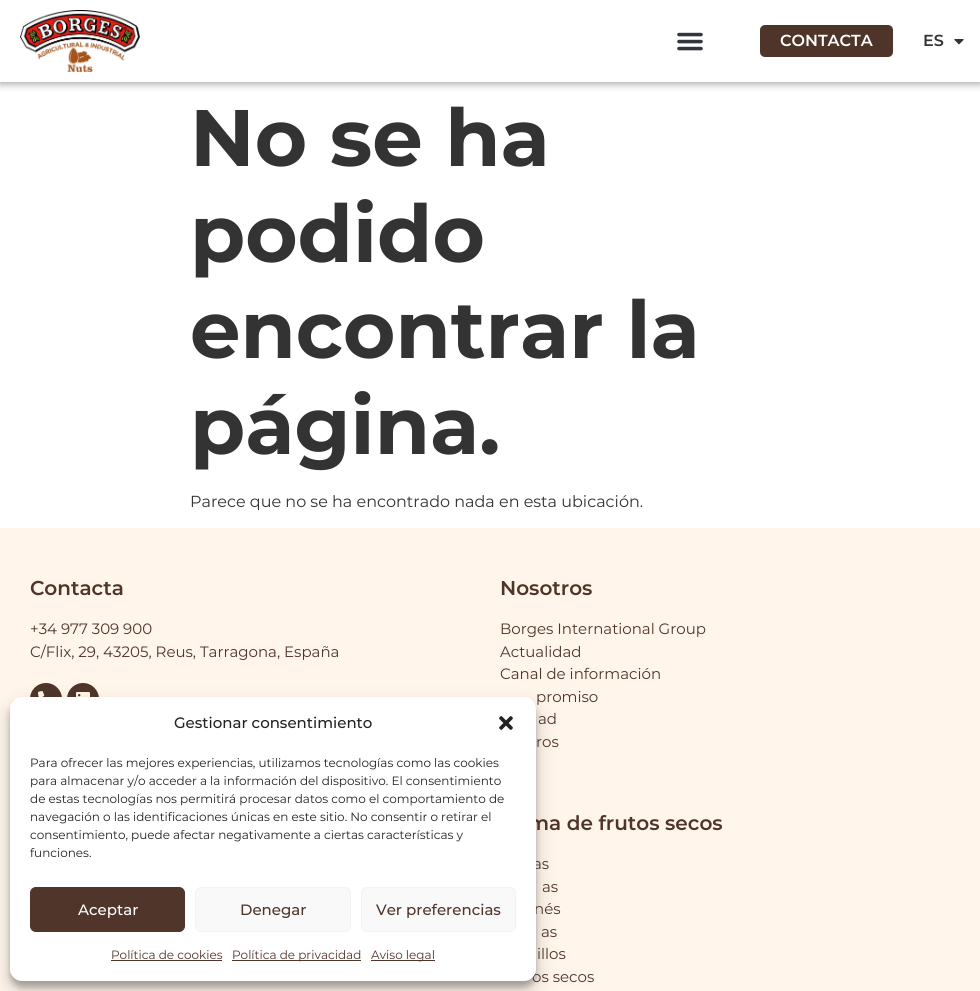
import math
import cairo


def use_color(cr, r, g, b):
  cr.set_source_rgb(r / 255, g / 255, b / 255)

def text(cr, x, y, s, family, size, color, bold=False, italic=False):
  cr.select_font_face(family, cairo.FONT_SLANT_ITALIC if italic else cairo.FONT_SLANT_NORMAL, cairo.FONT_WEIGHT_BOLD if bold else cairo.FONT_WEIGHT_NORMAL)
  cr.set_font_size(size)
  use_color(cr, *color)
  cr.move_to(x, y)
  cr.show_text(s)

def box(cr, x, y, w, h, *color):
  use_color(cr, *color)
  cr.rectangle(x, y, w, h)
  cr.fill()

def round_rect(cr, x, y, w, h, r):
  cr.new_sub_path()
  for i, (u, v) in enumerate([(x + w - r, y + h - r), (x + r, y + h - r), (x + r, y + r), (x + w - r, y + r)]):
    cr.arc(u, v, r, i * math.pi / 2, (i + 1) * math.pi / 2)
  cr.close_path()

def shadow(cr, x, y, w, h, r, blur, alpha):
  cr.push_group_with_content(cairo.CONTENT_ALPHA)
  cr.set_operator(cairo.OPERATOR_SOURCE)
  for i in range(15, -16, -2):
    e = blur * i / 6
    if min(w, h) + 2 * e > 0:
      cr.set_source_rgba(0, 0, 0, alpha * math.erfc((i - 1) / 8.5) / 2)
      round_rect(cr, x - e, y - e, w + 2 * e, h + 2 * e, max(0, min(r + e + blur * .6, min(w, h) / 2 + e)))
      cr.fill()
  cr.mask(cr.pop_group())

def picture(cr, path, x, y, w, h):
  cr.save()
  cr.set_source_surface(cairo.ImageSurface.create_from_png(path), x, y)
  cr.rectangle(x, y, w, h)
  cr.fill()
  cr.restore()

def draw(cr):
  use_color(cr, 255, 255, 255)
  cr.paint()
  cr.save()
  cr.rectangle(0, 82, 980, 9)
  cr.clip()
  use_color(cr, 0, 0, 0)
  shadow(cr, 0, 0, 980, 82, 0, 5, 0.5)
  cr.restore()
  picture(cr, "img_01.png", 20, 10, 120, 62)
  picture(cr, "img_02.png", 677, 32, 26, 19)
  use_color(cr, 79, 53, 41)
  round_rect(cr, 760, 25, 133, 32, 5)
  cr.fill()
  picture(cr, "img_03.png", 954, 39, 10, 6)
  box(cr, 0, 528, 980, 463, 255, 245, 234)
  use_color(cr, 79, 53, 41)
  cr.arc(46, 699, 16, 0, 2 * math.pi)
  cr.fill()
  picture(cr, "img_04.png", 38, 691, 7, 6)
  cr.arc(83, 699, 16, 0, 2 * math.pi)
  cr.fill()
  picture(cr, "img_05.png", 76, 692, 14, 5)
  use_color(cr, 0, 0, 0)
  shadow(cr, 10, 703, 526, 284, 12, 3, 0.23)
  shadow(cr, 10, 707, 526, 284, 12, 10, 0.19)
  text(cr, 780, 46, "CONTACTA", "Montserrat SemiBold", 16, (255, 255, 255))
  text(cr, 923, 46, "ES", "Montserrat SemiBold", 16, (51, 51, 51))
  text(cr, 190, 166, "No se ha", "Montserrat", 80, (51, 51, 51), bold=True)
  text(cr, 190, 262, "podido", "Montserrat", 80, (51, 51, 51), bold=True)
  text(cr, 190, 358, "encontrar la", "Montserrat", 80, (51, 51, 51), bold=True)
  text(cr, 190, 454, "página.", "Montserrat", 80, (51, 51, 51), bold=True)
  text(cr, 190, 507, "Parece que no se ha encontrado nada en esta ubicación.", "Montserrat", 16, (51, 51, 51))
  text(cr, 30, 595, "Contacta", "Montserrat SemiBold", 20, (79, 53, 41))
  text(cr, 30, 634, "+34 977 309 900", "Montserrat", 15, (79, 53, 41))
  text(cr, 30, 657, "C/Flix, 29, 43205, Reus, Tarragona, España", "Montserrat", 15, (79, 53, 41))
  text(cr, 500, 595, "Nosotros", "Montserrat SemiBold", 20, (79, 53, 41))
  text(cr, 500, 634, "Borges International Group", "Montserrat", 15, (79, 53, 41))
  text(cr, 500, 657, "Actualidad", "Montserrat", 15, (79, 53, 41))
  text(cr, 500, 679, "Canal de información", "Montserrat", 15, (79, 53, 41))
  text(cr, 536, 702, "promiso", "Montserrat", 15, (79, 53, 41))
  text(cr, 538, 724, "ad", "Montserrat", 15, (79, 53, 41))
  text(cr, 536, 747, "ros", "Montserrat", 15, (79, 53, 41))
  text(cr, 528, 830, "ma de frutos secos", "Montserrat SemiBold", 20, (79, 53, 41))
  text(cr, 533, 869, "as", "Montserrat", 15, (79, 53, 41))
  text(cr, 542, 892, "as", "Montserrat", 15, (79, 53, 41))
  text(cr, 534, 914, "nés", "Montserrat", 15, (79, 53, 41))
  text(cr, 541, 937, "as", "Montserrat", 15, (79, 53, 41))
  text(cr, 537, 959, "illos", "Montserrat", 15, (79, 53, 41))
  text(cr, 532, 982, "os secos", "Montserrat", 15, (79, 53, 41))
  use_color(cr, 255, 255, 255)
  round_rect(cr, 10, 697, 526, 284, 12)
  cr.fill()
  text(cr, 174, 728, "Gestionar consentimiento", "Montserrat Medium", 15, (34, 34, 34))
  picture(cr, "img_06.png", 499, 716, 14, 14)
  text(cr, 30, 767, "Para ofrecer las mejores experiencias, utilizamos tecnologías como las cookies", "Montserrat", 12, (34, 34, 34))
  text(cr, 30, 785, "para almacenar y/o acceder a la información del dispositivo. El consentimiento", "Montserrat", 12, (34, 34, 34))
  text(cr, 30, 803, "de estas tecnologías nos permitirá procesar datos como el comportamiento de", "Montserrat", 12, (34, 34, 34))
  text(cr, 30, 821, "navegación o las identificaciones únicas en este sitio. No consentir o retirar el", "Montserrat", 12, (34, 34, 34))
  text(cr, 30, 839, "consentimiento, puede afectar negativamente a ciertas características y", "Montserrat", 12, (34, 34, 34))
  text(cr, 30, 857, "funciones.", "Montserrat", 12, (34, 34, 34))
  use_color(cr, 80, 54, 42)
  round_rect(cr, 30.5, 887.5, 154, 44, 5.5)
  cr.fill_preserve()
  cr.set_line_width(1)
  cr.stroke()
  text(cr, 78, 915, "Aceptar", "Montserrat Medium", 15, (255, 255, 255))
  use_color(cr, 249, 249, 249)
  round_rect(cr, 195.5, 887.5, 155, 44, 5.5)
  cr.fill_preserve()
  use_color(cr, 242, 242, 242)
  cr.stroke()
  text(cr, 240, 915, "Denegar", "Montserrat Medium", 15, (79, 53, 41))
  use_color(cr, 249, 249, 249)
  round_rect(cr, 361.5, 887.5, 154, 44, 5.5)
  cr.fill_preserve()
  use_color(cr, 242, 242, 242)
  cr.stroke()
  text(cr, 376, 915, "Ver preferencias", "Montserrat Medium", 15, (79, 53, 41))
  text(cr, 111, 959, "Política de cookies", "Montserrat", 12, (79, 53, 41))
  box(cr, 111, 960, 111, 1, 80, 54, 42)
  box(cr, 232, 960, 129, 1, 80, 54, 42)
  text(cr, 232, 959, "Política de privacidad", "Montserrat", 12, (79, 53, 41))
  box(cr, 371, 960, 64, 1, 80, 54, 42)
  text(cr, 371, 959, "Aviso legal", "Montserrat", 12, (79, 53, 41))


surface = cairo.ImageSurface(cairo.FORMAT_RGB24, 980, 991)
cr = cairo.Context(surface)
options = cairo.FontOptions()
options.set_hint_metrics(cairo.HINT_METRICS_OFF)
options.set_hint_style(cairo.HINT_STYLE_NONE)
cr.set_font_options(options)
cr.set_miter_limit(4)
draw(cr)
surface.write_to_png("out.png")
